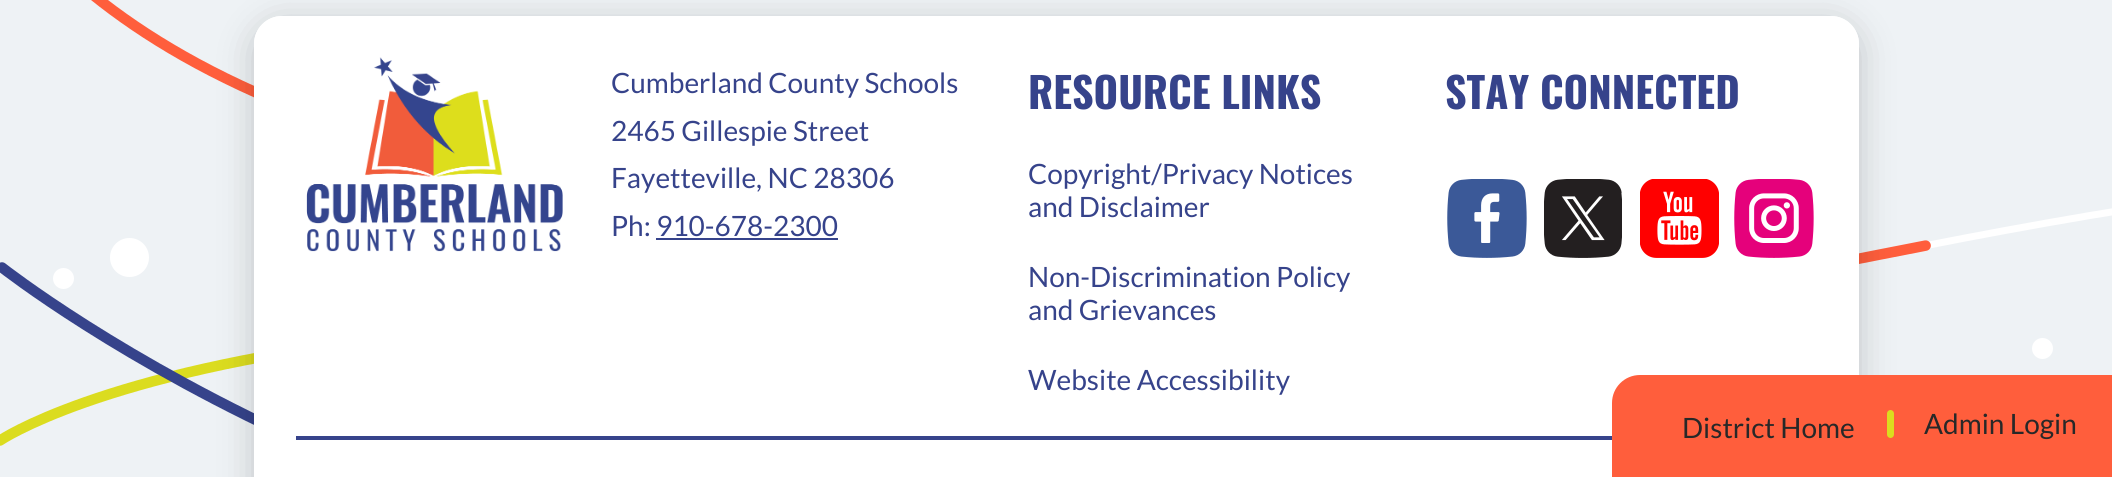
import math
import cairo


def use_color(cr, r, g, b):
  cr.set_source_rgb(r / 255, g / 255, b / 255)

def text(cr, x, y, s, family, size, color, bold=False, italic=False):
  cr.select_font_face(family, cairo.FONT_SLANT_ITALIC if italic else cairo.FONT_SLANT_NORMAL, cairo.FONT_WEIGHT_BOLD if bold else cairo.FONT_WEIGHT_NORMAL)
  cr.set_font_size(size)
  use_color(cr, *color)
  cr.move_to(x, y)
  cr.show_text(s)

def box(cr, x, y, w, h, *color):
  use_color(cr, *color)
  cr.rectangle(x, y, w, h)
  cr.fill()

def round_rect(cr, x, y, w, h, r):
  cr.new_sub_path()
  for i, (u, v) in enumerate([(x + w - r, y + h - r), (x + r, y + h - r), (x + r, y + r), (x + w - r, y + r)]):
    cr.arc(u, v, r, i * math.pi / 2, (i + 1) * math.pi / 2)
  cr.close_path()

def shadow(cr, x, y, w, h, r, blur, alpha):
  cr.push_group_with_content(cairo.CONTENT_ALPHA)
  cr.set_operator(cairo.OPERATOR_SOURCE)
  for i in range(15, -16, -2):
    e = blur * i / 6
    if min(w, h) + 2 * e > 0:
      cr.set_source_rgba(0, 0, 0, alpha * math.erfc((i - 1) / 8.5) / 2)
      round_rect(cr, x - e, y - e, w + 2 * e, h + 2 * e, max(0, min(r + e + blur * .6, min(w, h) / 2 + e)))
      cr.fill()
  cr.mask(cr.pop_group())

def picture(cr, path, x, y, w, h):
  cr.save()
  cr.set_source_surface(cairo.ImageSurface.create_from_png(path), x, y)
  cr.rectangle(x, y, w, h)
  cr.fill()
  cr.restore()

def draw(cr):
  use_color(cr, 238, 242, 245)
  cr.paint()
  cr.new_path()
  cr.move_to(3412.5, 211.5)
  cr.curve_to(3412.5, 211.5, 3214, 454.5, 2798, 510.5)
  cr.line_to(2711.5, 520.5)
  cr.move_to(1935, 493)
  cr.curve_to(1834.5, 472, 1734.5, 447, 1634.5, 424.5)
  cr.curve_to(1543, 404, 1451, 385, 1358.5, 369)
  cr.line_to(1222.5, 347.5)
  cr.line_to(1166, 342)
  cr.move_to(385.5, 338.5)
  cr.curve_to(100, 372, 0, 440.5, 0, 440.5)
  use_color(cr, 219, 220, 31)
  cr.set_line_width(10.5)
  cr.set_line_cap(cairo.LINE_CAP_ROUND)
  cr.stroke()
  use_color(cr, 255, 255, 255)
  cr.arc(63.5, 278.5, 10.5, 0, 2 * math.pi)
  cr.fill()
  cr.arc(129.5, 257.5, 19.5, 0, 2 * math.pi)
  cr.fill()
  cr.new_path()
  cr.move_to(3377.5, 475.5)
  cr.curve_to(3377.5, 475.5, 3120, 302, 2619, 333.5)
  cr.move_to(1844.5, 444.5)
  cr.curve_to(1548, 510, 1330, 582, 1079, 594.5)
  cr.move_to(317, 448.5)
  cr.curve_to(122, 362, 2, 267.5, 2, 267.5)
  use_color(cr, 54, 67, 139)
  cr.stroke()
  picture(cr, "img_01.png", 91, 0, 2021, 264)
  use_color(cr, 255, 255, 255)
  cr.arc(2042.5, 348.5, 10.5, 0, 2 * math.pi)
  cr.fill()
  use_color(cr, 0, 0, 0)
  shadow(cr, 254, 23, 1605, 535, 28, 17.5, 0.2)
  use_color(cr, 255, 255, 255)
  round_rect(cr, 254, 16, 1605, 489, 28)
  cr.fill()
  cr.set_source_rgba(1, 1, 1, 0.9)
  round_rect(cr, 254, 16, 1605, 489, 28)
  cr.fill()
  picture(cr, "img_02.png", 306, 57, 257, 195)
  box(cr, 656, 238, 182, 2, 54, 67, 139)
  picture(cr, "img_03.png", 1447, 179, 80, 79)
  picture(cr, "img_04.png", 1544, 179, 78, 79)
  picture(cr, "img_05.png", 1640, 179, 79, 79)
  picture(cr, "img_06.png", 1734, 179, 80, 79)
  box(cr, 296, 436, 1316, 4, 54, 67, 139)
  use_color(cr, 255, 94, 60)
  cr.new_path()
  cr.move_to(1640, 375)
  cr.line_to(2112, 375)
  cr.line_to(2112, 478)
  cr.line_to(1612, 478)
  cr.line_to(1612, 403)
  cr.curve_to(1612, 387.5, 1624.5, 375, 1640, 375)
  cr.close_path()
  cr.fill()
  use_color(cr, 219, 220, 31)
  round_rect(cr, 1887, 410, 7, 28, 3.5)
  cr.fill()
  text(cr, 611, 93, "Cumberland County Schools", "Lato", 28, (54, 67, 139))
  text(cr, 611, 141, "2465 Gillespie Street", "Lato", 28, (54, 67, 139))
  text(cr, 611, 188, "Fayetteville, NC 28306", "Lato", 28, (54, 67, 139))
  text(cr, 611, 236, "Ph: 910-678-2300", "Lato", 28, (54, 67, 139))
  text(cr, 1028, 109, "RESOURCE LINKS", "Oswald", 42, (54, 67, 139), bold=True)
  text(cr, 1028, 184, "Copyright/Privacy Notices", "Lato", 28, (54, 67, 139))
  text(cr, 1028, 217, "and Disclaimer", "Lato", 28, (54, 67, 139))
  text(cr, 1028, 287, "Non-Discrimination Policy", "Lato", 28, (54, 67, 139))
  text(cr, 1028, 320, "and Grievances", "Lato", 28, (54, 67, 139))
  text(cr, 1028, 390, "Website Accessibility", "Lato", 28, (54, 67, 139))
  text(cr, 1445, 109, "STAY CONNECTED", "Oswald", 42, (54, 67, 139), bold=True)
  text(cr, 1682, 438, "District Home", "Lato", 28, (40, 40, 40))
  text(cr, 1924, 434, "Admin Login", "Lato", 28, (40, 40, 40))


surface = cairo.ImageSurface(cairo.FORMAT_RGB24, 2112, 477)
cr = cairo.Context(surface)
options = cairo.FontOptions()
options.set_hint_metrics(cairo.HINT_METRICS_OFF)
options.set_hint_style(cairo.HINT_STYLE_NONE)
cr.set_font_options(options)
cr.set_miter_limit(4)
draw(cr)
surface.write_to_png("out.png")
